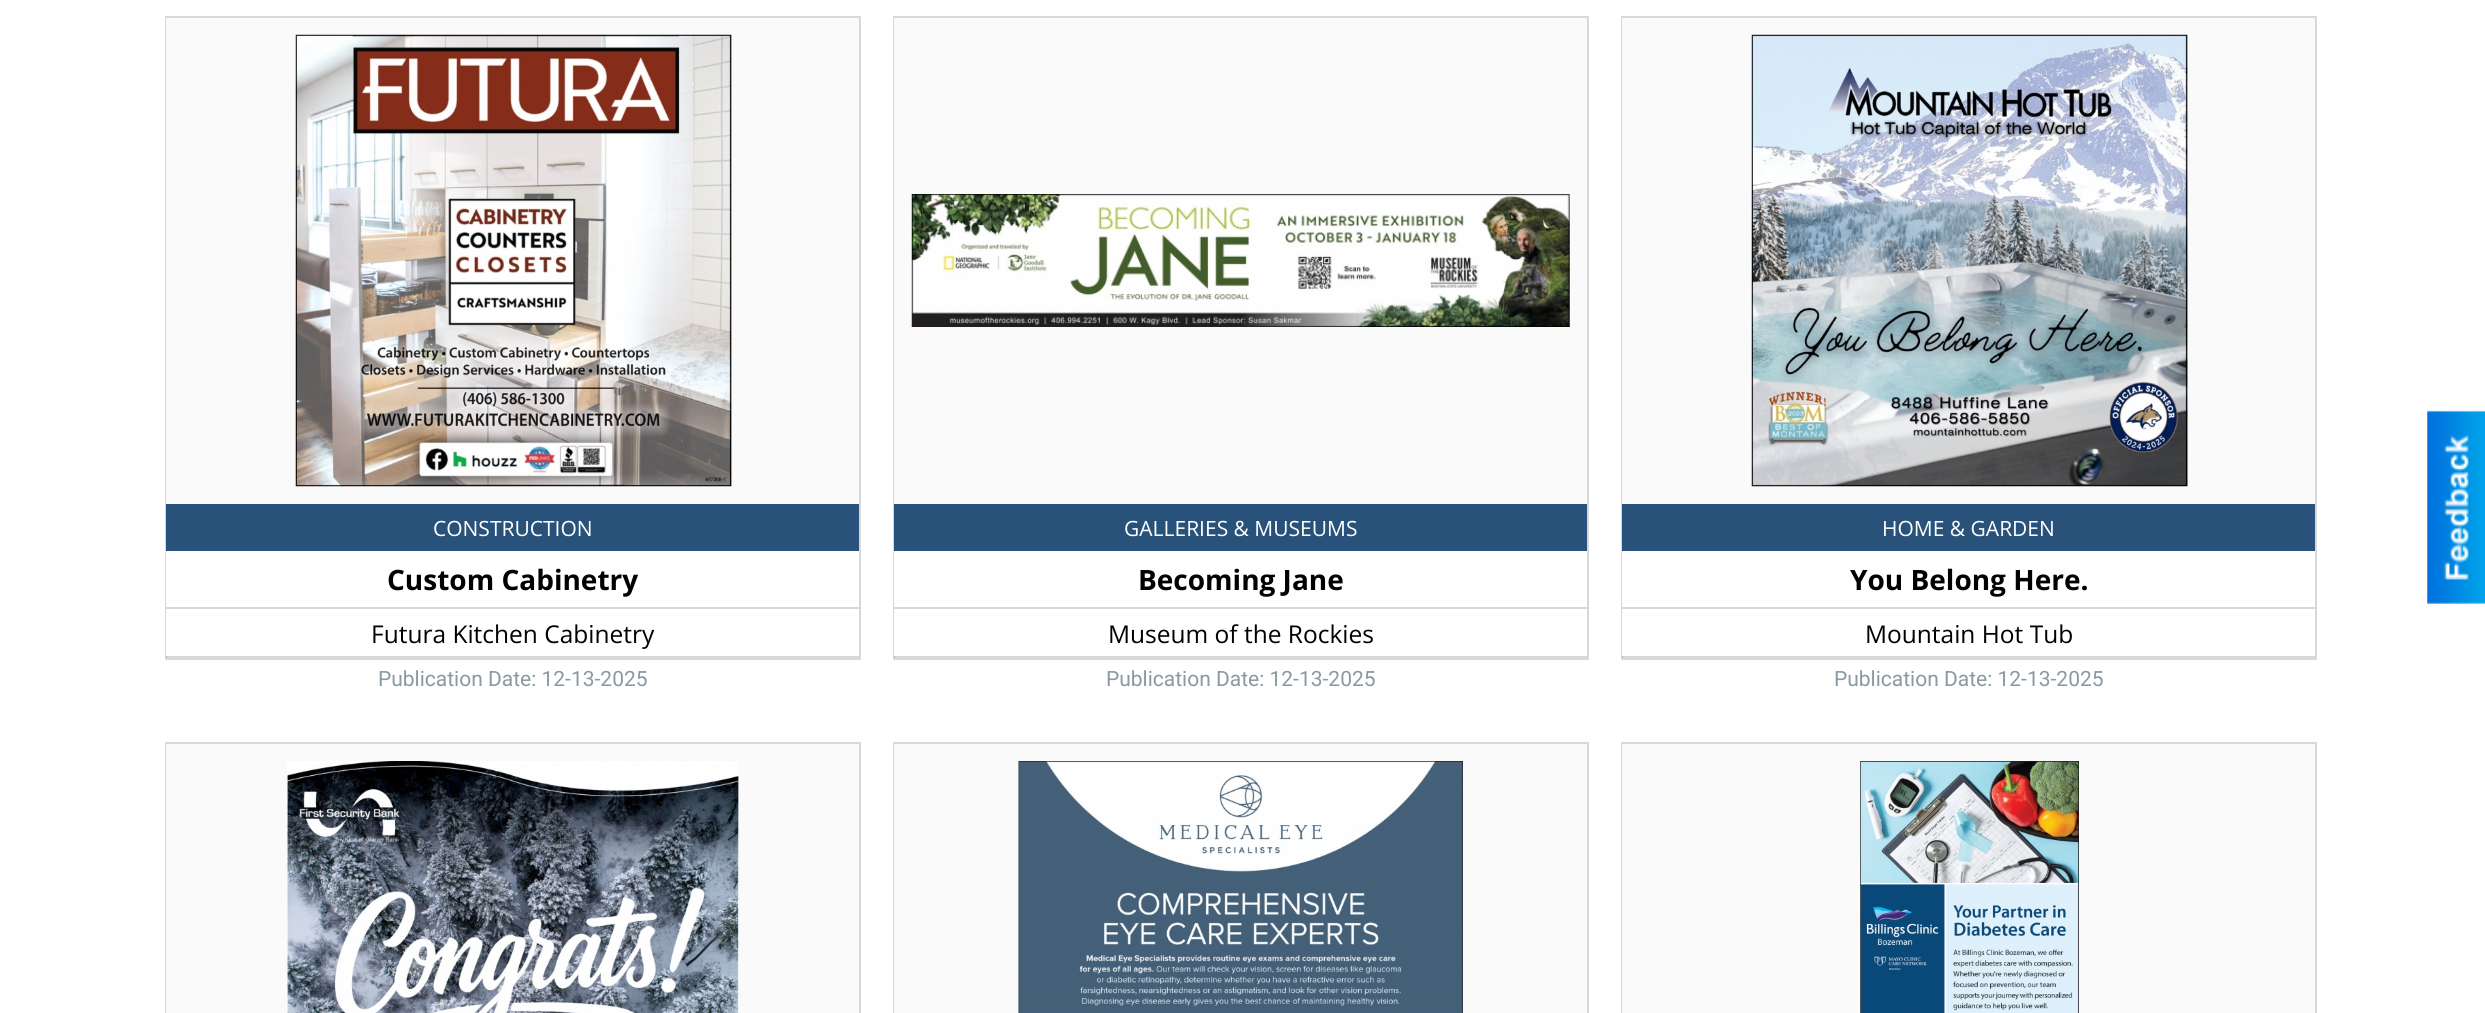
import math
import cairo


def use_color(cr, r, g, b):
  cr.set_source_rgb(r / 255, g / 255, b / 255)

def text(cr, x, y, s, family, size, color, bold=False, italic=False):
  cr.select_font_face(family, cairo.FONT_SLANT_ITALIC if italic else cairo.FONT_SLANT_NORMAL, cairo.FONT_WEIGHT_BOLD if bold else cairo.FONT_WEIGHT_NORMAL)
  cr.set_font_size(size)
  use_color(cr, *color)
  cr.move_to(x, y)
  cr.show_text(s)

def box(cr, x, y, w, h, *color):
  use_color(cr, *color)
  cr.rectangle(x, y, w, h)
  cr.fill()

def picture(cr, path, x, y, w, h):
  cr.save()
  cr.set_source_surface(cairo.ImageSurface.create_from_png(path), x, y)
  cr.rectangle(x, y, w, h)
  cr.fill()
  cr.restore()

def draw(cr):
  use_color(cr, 255, 255, 255)
  cr.paint()
  cr.rectangle(166, 17, 694, 642)
  use_color(cr, 217, 217, 217)
  cr.stroke()
  cr.set_source_rgba(0, 0, 0, 0.15)
  cr.rectangle(166, 656, 693, 2)
  cr.fill()
  box(cr, 166, 18, 693, 486, 250, 250, 250)
  picture(cr, "img_01.png", 295, 34, 437, 453)
  box(cr, 166, 551, 1, 105, 255, 255, 255)
  box(cr, 166, 504, 693, 47, 41, 82, 122)
  box(cr, 166, 607, 693, 2, 217, 217, 217)
  cr.rectangle(894, 17, 694, 642)
  cr.stroke()
  cr.set_source_rgba(0, 0, 0, 0.15)
  cr.rectangle(894, 656, 693, 2)
  cr.fill()
  box(cr, 894, 18, 693, 486, 250, 250, 250)
  picture(cr, "img_02.png", 911, 194, 659, 133)
  box(cr, 894, 551, 1, 105, 255, 255, 255)
  box(cr, 894, 504, 693, 47, 41, 82, 122)
  box(cr, 894, 607, 693, 2, 217, 217, 217)
  cr.rectangle(1622, 17, 694, 642)
  cr.stroke()
  cr.set_source_rgba(0, 0, 0, 0.15)
  cr.rectangle(1622, 656, 693, 2)
  cr.fill()
  box(cr, 1622, 18, 693, 486, 250, 250, 250)
  picture(cr, "img_03.png", 1751, 34, 437, 453)
  box(cr, 1622, 551, 1, 105, 255, 255, 255)
  box(cr, 1622, 504, 693, 47, 41, 82, 122)
  box(cr, 1622, 607, 693, 2, 217, 217, 217)
  cr.rectangle(166, 743, 694, 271)
  cr.stroke()
  box(cr, 166, 744, 693, 269, 250, 250, 250)
  picture(cr, "img_04.png", 287, 761, 452, 252)
  cr.rectangle(894, 743, 694, 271)
  use_color(cr, 217, 217, 217)
  cr.stroke()
  box(cr, 894, 744, 693, 269, 250, 250, 250)
  picture(cr, "img_05.png", 1018, 761, 445, 252)
  cr.rectangle(1622, 743, 694, 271)
  use_color(cr, 217, 217, 217)
  cr.stroke()
  box(cr, 1622, 744, 693, 269, 250, 250, 250)
  picture(cr, "img_06.png", 1860, 761, 219, 252)
  picture(cr, "img_07.png", 2427, 410, 58, 194)
  text(cr, 433, 536, "CONSTRUCTION", "Open Sans", 21, (255, 255, 255))
  text(cr, 387, 590, "Custom Cabinetry", "Open Sans", 28, (1, 1, 1), bold=True)
  text(cr, 371, 643, "Futura Kitchen Cabinetry", "Open Sans", 24.5, (1, 1, 1))
  text(cr, 378, 686, "Publication Date: 12-13-2025", "Roboto", 21, (136, 153, 160))
  text(cr, 1124, 536, "GALLERIES & MUSEUMS", "Open Sans", 21, (255, 255, 255))
  text(cr, 1138, 590, "Becoming Jane", "Open Sans", 28, (1, 1, 1), bold=True)
  text(cr, 1108, 643, "Museum of the Rockies", "Open Sans", 24.5, (1, 1, 1))
  text(cr, 1106, 686, "Publication Date: 12-13-2025", "Roboto", 21, (136, 153, 160))
  text(cr, 1882, 536, "HOME & GARDEN", "Open Sans", 21, (255, 255, 255))
  text(cr, 1850, 590, "You Belong Here.", "Open Sans", 28, (1, 1, 1), bold=True)
  text(cr, 1865, 643, "Mountain Hot Tub", "Open Sans", 24.5, (1, 1, 1))
  text(cr, 1834, 686, "Publication Date: 12-13-2025", "Roboto", 21, (136, 153, 160))


surface = cairo.ImageSurface(cairo.FORMAT_RGB24, 2485, 1013)
cr = cairo.Context(surface)
options = cairo.FontOptions()
options.set_hint_metrics(cairo.HINT_METRICS_OFF)
options.set_hint_style(cairo.HINT_STYLE_NONE)
cr.set_font_options(options)
cr.set_miter_limit(4)
draw(cr)
surface.write_to_png("out.png")
